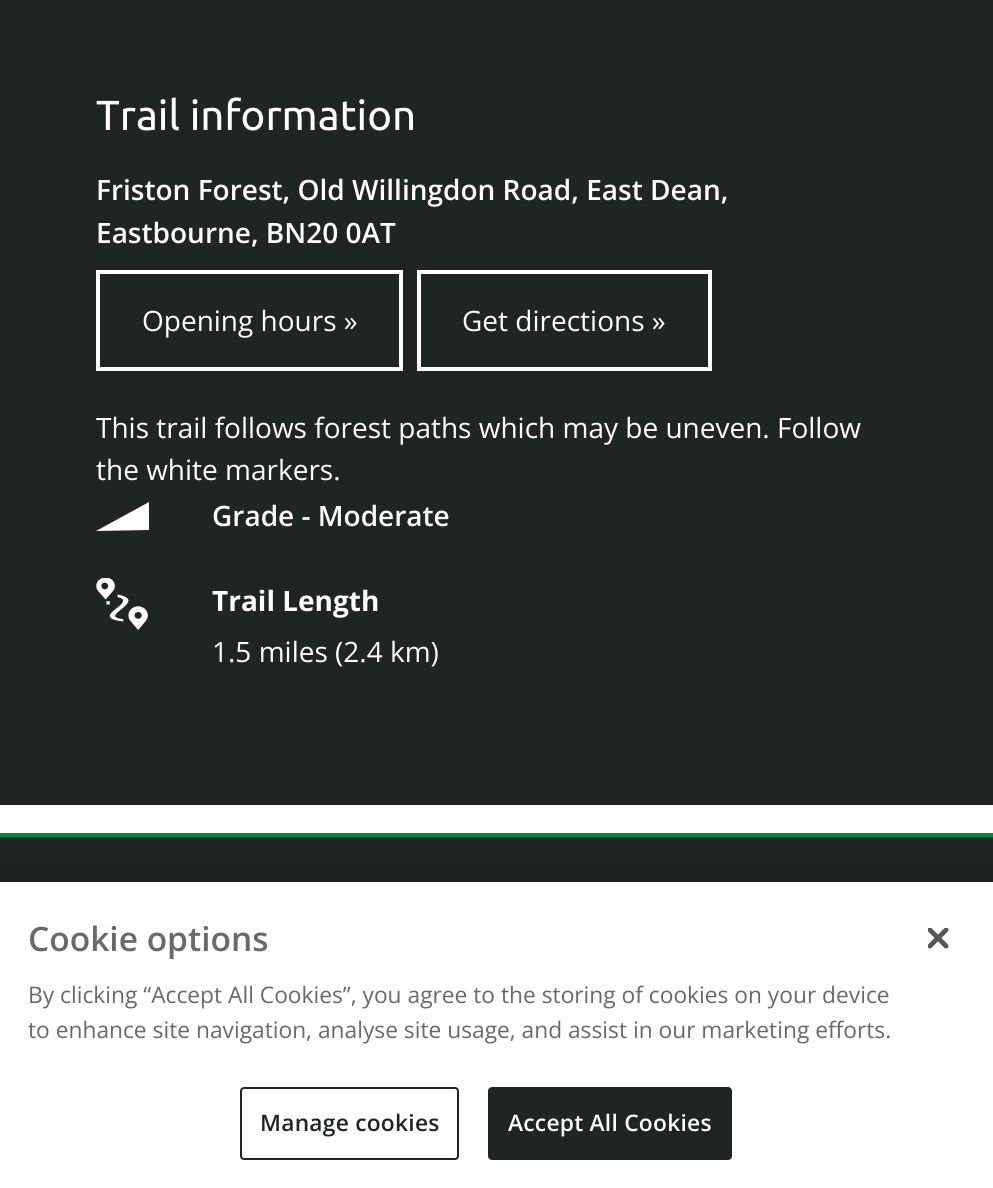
import math
import cairo


def use_color(cr, r, g, b):
  cr.set_source_rgb(r / 255, g / 255, b / 255)

def text(cr, x, y, s, family, size, color, bold=False, italic=False):
  cr.select_font_face(family, cairo.FONT_SLANT_ITALIC if italic else cairo.FONT_SLANT_NORMAL, cairo.FONT_WEIGHT_BOLD if bold else cairo.FONT_WEIGHT_NORMAL)
  cr.set_font_size(size)
  use_color(cr, *color)
  cr.move_to(x, y)
  cr.show_text(s)

def spaced_text(cr, x, y, s, letter, word):
  cr.move_to(x, y)
  for ch in s:
    cr.show_text(ch)
    cr.rel_move_to(letter + word * (ch == ' '), 0)

def box(cr, x, y, w, h, *color):
  use_color(cr, *color)
  cr.rectangle(x, y, w, h)
  cr.fill()

def round_rect(cr, x, y, w, h, r):
  cr.new_sub_path()
  for i, (u, v) in enumerate([(x + w - r, y + h - r), (x + r, y + h - r), (x + r, y + r), (x + w - r, y + r)]):
    cr.arc(u, v, r, i * math.pi / 2, (i + 1) * math.pi / 2)
  cr.close_path()

def shadow(cr, x, y, w, h, r, blur, alpha):
  cr.push_group_with_content(cairo.CONTENT_ALPHA)
  cr.set_operator(cairo.OPERATOR_SOURCE)
  for i in range(15, -16, -2):
    e = blur * i / 6
    if min(w, h) + 2 * e > 0:
      cr.set_source_rgba(0, 0, 0, alpha * math.erfc((i - 1) / 8.5) / 2)
      round_rect(cr, x - e, y - e, w + 2 * e, h + 2 * e, max(0, min(r + e + blur * .6, min(w, h) / 2 + e)))
      cr.fill()
  cr.mask(cr.pop_group())

def picture(cr, path, x, y, w, h):
  cr.save()
  cr.set_source_surface(cairo.ImageSurface.create_from_png(path), x, y)
  cr.rectangle(x, y, w, h)
  cr.fill()
  cr.restore()

def draw(cr):
  use_color(cr, 255, 255, 255)
  cr.paint()
  box(cr, 0, 0, 993, 805, 30, 37, 34)
  cr.rectangle(98, 272, 303, 97)
  use_color(cr, 255, 255, 255)
  cr.set_line_width(4)
  cr.stroke()
  cr.rectangle(419, 272, 291, 97)
  cr.stroke()
  cr.set_fill_rule(cairo.FILL_RULE_EVEN_ODD)
  cr.new_path()
  cr.move_to(96, 531)
  cr.line_to(149, 502)
  cr.line_to(149, 530)
  cr.close_path()
  cr.fill()
  picture(cr, "img_01.png", 96, 578, 52, 52)
  box(cr, 0, 837, 993, 45, 30, 37, 34)
  box(cr, 0, 833, 993, 4, 0, 136, 71)
  use_color(cr, 0, 0, 0)
  shadow(cr, 0, 882, 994, 306, 0, 16, 0.2)
  box(cr, 0, 882, 993, 306, 255, 255, 255)
  round_rect(cr, 241, 1088, 217, 71, 3)
  use_color(cr, 30, 37, 34)
  cr.set_line_width(2)
  cr.stroke()
  round_rect(cr, 489, 1088, 242, 71, 3)
  cr.fill_preserve()
  cr.stroke()
  picture(cr, "img_02.png", 928, 928, 21, 21)
  text(cr, 96, 130, "Trail information", "Ubuntu", 42, (255, 255, 255))
  text(cr, 96, 200, "Friston Forest, Old Willingdon Road, East Dean,", "Open Sans SemiBold", 28, (255, 255, 255))
  text(cr, 96, 243, "Eastbourne, BN20 0AT", "Open Sans SemiBold", 28, (255, 255, 255))
  text(cr, 142, 331, "Opening hours »", "Open Sans", 28, (255, 255, 255))
  text(cr, 462, 331, "Get directions »", "Open Sans", 28, (255, 255, 255))
  text(cr, 96, 438, "This trail follows forest paths which may be uneven. Follow", "Open Sans", 28, (255, 255, 255))
  text(cr, 96, 480, "the white markers.", "Open Sans", 28, (255, 255, 255))
  text(cr, 212, 526, "Grade - Moderate", "Open Sans SemiBold", 28, (255, 255, 255))
  text(cr, 212, 611, "Trail Length", "Open Sans", 28, (255, 255, 255), bold=True)
  text(cr, 212, 662, "1.5 miles (2.4 km)", "Open Sans", 28, (255, 255, 255))
  text(cr, 28, 951, "Cookie options", "Open Sans SemiBold", 33.5, (105, 105, 105))
  text(cr, 28, 1003, "By clicking “Accept All Cookies”, you agree to the storing of cookies on your device", "Open Sans", 22.75, (105, 105, 105))
  text(cr, 28, 1038, "to enhance site navigation, analyse site usage, and assist in our marketing efforts.", "Open Sans", 22.75, (105, 105, 105))
  cr.select_font_face("Open Sans SemiBold")
  use_color(cr, 30, 37, 34)
  spaced_text(cr, 260, 1131, "Manage cookies", 0.25, 0)
  use_color(cr, 255, 255, 255)
  spaced_text(cr, 508, 1131, "Accept All Cookies", 0.25, 0)


surface = cairo.ImageSurface(cairo.FORMAT_RGB24, 993, 1188)
cr = cairo.Context(surface)
options = cairo.FontOptions()
options.set_hint_metrics(cairo.HINT_METRICS_OFF)
options.set_hint_style(cairo.HINT_STYLE_NONE)
cr.set_font_options(options)
cr.set_miter_limit(4)
draw(cr)
surface.write_to_png("out.png")
